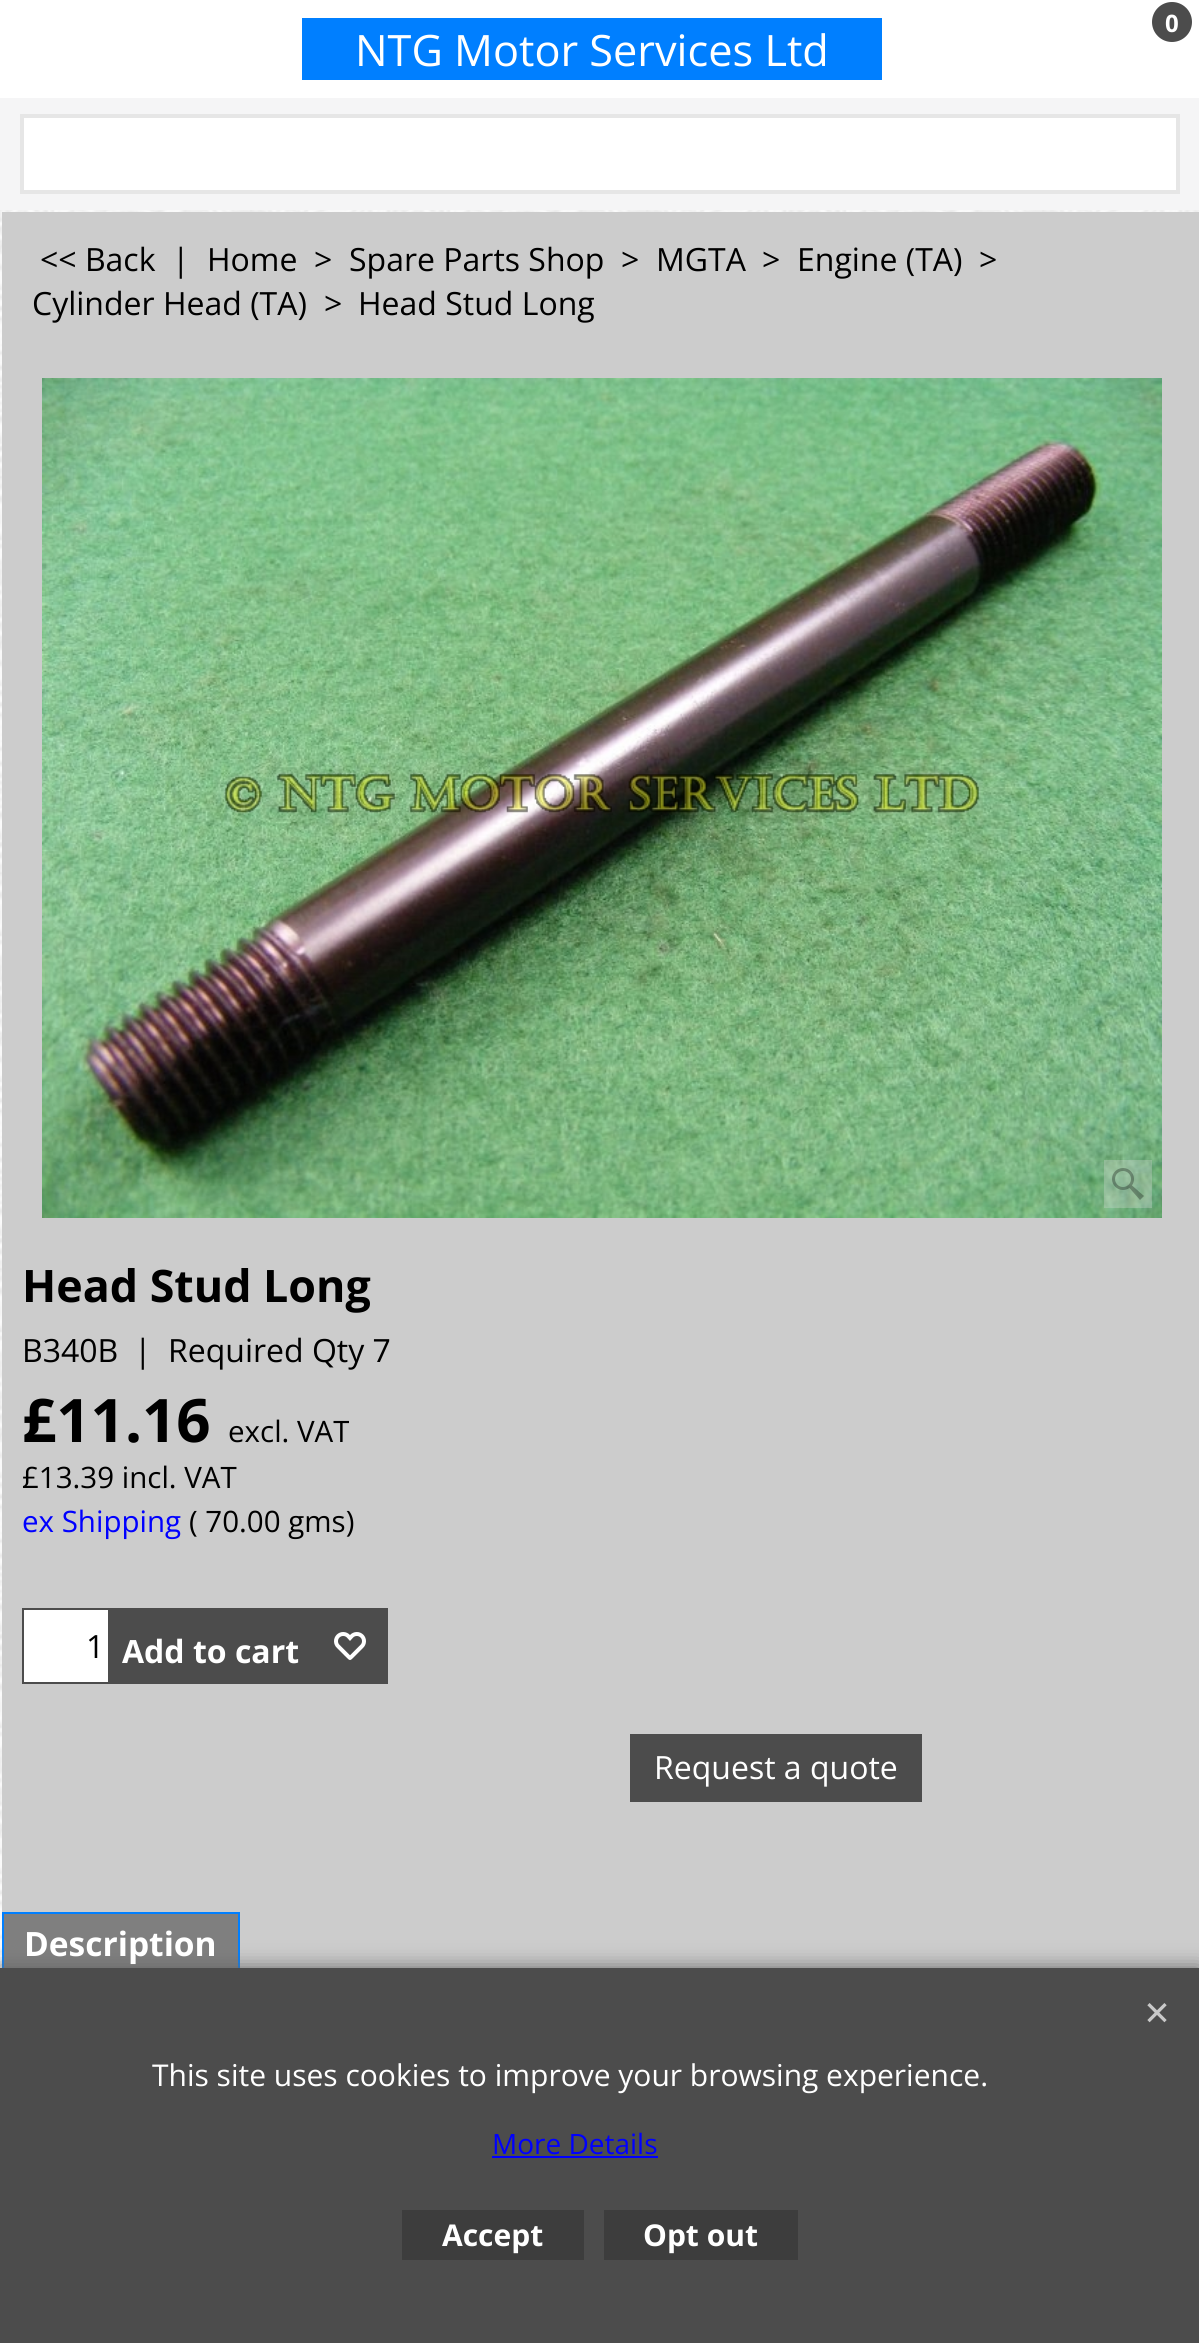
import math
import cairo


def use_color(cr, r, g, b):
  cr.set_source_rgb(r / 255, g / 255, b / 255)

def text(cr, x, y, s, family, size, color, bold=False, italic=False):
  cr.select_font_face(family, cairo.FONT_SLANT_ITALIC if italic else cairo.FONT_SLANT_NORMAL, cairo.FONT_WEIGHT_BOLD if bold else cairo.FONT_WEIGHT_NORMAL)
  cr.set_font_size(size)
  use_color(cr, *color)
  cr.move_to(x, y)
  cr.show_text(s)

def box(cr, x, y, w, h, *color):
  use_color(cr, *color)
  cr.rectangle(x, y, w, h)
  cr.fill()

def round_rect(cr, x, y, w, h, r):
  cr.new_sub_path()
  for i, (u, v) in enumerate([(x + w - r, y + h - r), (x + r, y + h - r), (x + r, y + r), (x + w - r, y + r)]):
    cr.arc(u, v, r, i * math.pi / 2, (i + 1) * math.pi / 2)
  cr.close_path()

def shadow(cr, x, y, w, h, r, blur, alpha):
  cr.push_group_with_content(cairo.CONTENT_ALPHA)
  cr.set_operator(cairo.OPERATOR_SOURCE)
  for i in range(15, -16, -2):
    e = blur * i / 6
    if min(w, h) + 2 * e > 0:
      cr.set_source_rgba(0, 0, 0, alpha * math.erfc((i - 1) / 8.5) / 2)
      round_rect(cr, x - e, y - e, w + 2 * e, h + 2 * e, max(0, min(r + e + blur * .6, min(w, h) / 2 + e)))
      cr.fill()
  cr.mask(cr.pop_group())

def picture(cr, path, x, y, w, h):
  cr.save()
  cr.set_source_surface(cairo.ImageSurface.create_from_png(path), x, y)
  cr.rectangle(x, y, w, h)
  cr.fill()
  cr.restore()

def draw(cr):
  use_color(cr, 255, 255, 255)
  cr.paint()
  picture(cr, "img_01.png", 0, 210, 1199, 1758)
  use_color(cr, 76, 76, 76)
  cr.arc(1172, 22, 23, 0, 2 * math.pi)
  cr.fill_preserve()
  use_color(cr, 255, 255, 255)
  cr.set_line_width(6)
  cr.stroke()
  box(cr, 302, 18, 580, 62, 0, 127, 255)
  box(cr, 0, 98, 1199, 112, 245, 245, 246)
  use_color(cr, 255, 255, 255)
  cr.rectangle(22, 116, 1156, 76)
  cr.fill_preserve()
  use_color(cr, 230, 230, 230)
  cr.set_line_width(4)
  cr.stroke()
  box(cr, 2, 212, 1197, 1756, 204, 204, 204)
  picture(cr, "img_02.png", 42, 378, 1120, 840)
  cr.set_source_rgba(0.871, 0.871, 0.871, 0.3)
  cr.rectangle(1104, 1160, 48, 48)
  cr.fill()
  picture(cr, "img_03.png", 1112, 1168, 32, 32)
  box(cr, 22, 1608, 366, 76, 76, 76, 76)
  box(cr, 24, 1610, 84, 72, 255, 255, 255)
  picture(cr, "img_04.png", 334, 1632, 32, 28)
  box(cr, 630, 1734, 292, 68, 76, 76, 76)
  box(cr, 4, 1914, 234, 54, 127, 127, 127)
  box(cr, 2, 1912, 238, 2, 0, 127, 255)
  cr.new_path()
  cr.move_to(240, 1912)
  cr.line_to(240, 1974)
  cr.line_to(238, 1972)
  cr.line_to(238, 1914)
  cr.close_path()
  cr.fill()
  cr.new_path()
  cr.move_to(2, 1974)
  cr.line_to(2, 1912)
  cr.line_to(4, 1914)
  cr.line_to(4, 1972)
  cr.close_path()
  cr.fill()
  use_color(cr, 102, 102, 102)
  shadow(cr, 0, 1968, 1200, 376, 0, 10, 1)
  box(cr, 0, 1968, 1199, 375, 76, 76, 76)
  picture(cr, "img_05.png", 1147, 2003, 20, 20)
  box(cr, 492, 2156, 166, 2, 0, 0, 255)
  box(cr, 402, 2210, 182, 50, 61, 61, 61)
  box(cr, 604, 2210, 194, 50, 61, 61, 61)
  text(cr, 1165, 32, "0", "Open Sans", 24, (255, 255, 255), bold=True)
  text(cr, 355, 66, "NTG Motor Services Ltd", "Open Sans", 43.25, (255, 255, 255))
  text(cr, 40, 271, "<< Back", "Open Sans", 32, (0, 0, 0))
  text(cr, 172, 271, "|", "Open Sans", 32, (0, 0, 0))
  text(cr, 207, 271, "Home", "Open Sans", 32, (0, 0, 0))
  text(cr, 314, 271, ">", "Open Sans", 32, (0, 0, 0))
  text(cr, 349, 271, "Spare Parts Shop", "Open Sans", 32, (0, 0, 0))
  text(cr, 621, 271, ">", "Open Sans", 32, (0, 0, 0))
  text(cr, 656, 271, "MGTA", "Open Sans", 32, (0, 0, 0))
  text(cr, 762, 271, ">", "Open Sans", 32, (0, 0, 0))
  text(cr, 797, 271, "Engine (TA)", "Open Sans", 32, (0, 0, 0))
  text(cr, 979, 271, ">", "Open Sans", 32, (0, 0, 0))
  text(cr, 32, 315, "Cylinder Head (TA)", "Open Sans", 32, (0, 0, 0))
  text(cr, 324, 315, ">", "Open Sans", 32, (0, 0, 0))
  text(cr, 358, 315, "Head Stud Long", "Open Sans", 32, (0, 0, 0))
  text(cr, 22, 1302, "Head Stud Long", "Open Sans", 44.75, (0, 0, 0), bold=True)
  text(cr, 22, 1362, "B340B", "Open Sans", 32, (0, 0, 0))
  text(cr, 134, 1362, "|", "Open Sans", 32, (0, 0, 0))
  text(cr, 168, 1362, "Required Qty 7", "Open Sans", 32, (0, 0, 0))
  text(cr, 22, 1442, "£11.16", "Open Sans", 60, (0, 0, 0), bold=True)
  text(cr, 228, 1442, "excl. VAT", "Open Sans", 29.5, (0, 0, 0))
  text(cr, 22, 1488, "£13.39 incl. VAT", "Open Sans", 29.5, (0, 0, 0))
  text(cr, 22, 1532, "ex Shipping", "Open Sans", 29.5, (0, 0, 255))
  text(cr, 189, 1532, "( 70.00 gms)", "Open Sans", 29.5, (0, 0, 0))
  text(cr, 86, 1658, "1", "Open Sans", 32, (0, 0, 0))
  text(cr, 122, 1663, "Add to cart", "Open Sans", 32, (255, 255, 255), bold=True)
  text(cr, 654, 1779, "Request a quote", "Open Sans", 32, (255, 255, 255))
  text(cr, 24, 1956, "Description", "Open Sans", 33.5, (255, 255, 255), bold=True)
  text(cr, 152, 2086, "This site uses cookies to improve your browsing experience.", "Open Sans", 30, (255, 255, 255))
  text(cr, 492, 2154, "More Details", "Open Sans", 28, (0, 0, 255))
  text(cr, 442, 2246, "Accept", "Open Sans", 30, (255, 255, 255), bold=True)
  text(cr, 643, 2246, "Opt out", "Open Sans", 30, (255, 255, 255), bold=True)


surface = cairo.ImageSurface(cairo.FORMAT_RGB24, 1199, 2343)
cr = cairo.Context(surface)
options = cairo.FontOptions()
options.set_hint_metrics(cairo.HINT_METRICS_OFF)
options.set_hint_style(cairo.HINT_STYLE_NONE)
cr.set_font_options(options)
cr.set_miter_limit(4)
draw(cr)
surface.write_to_png("out.png")
